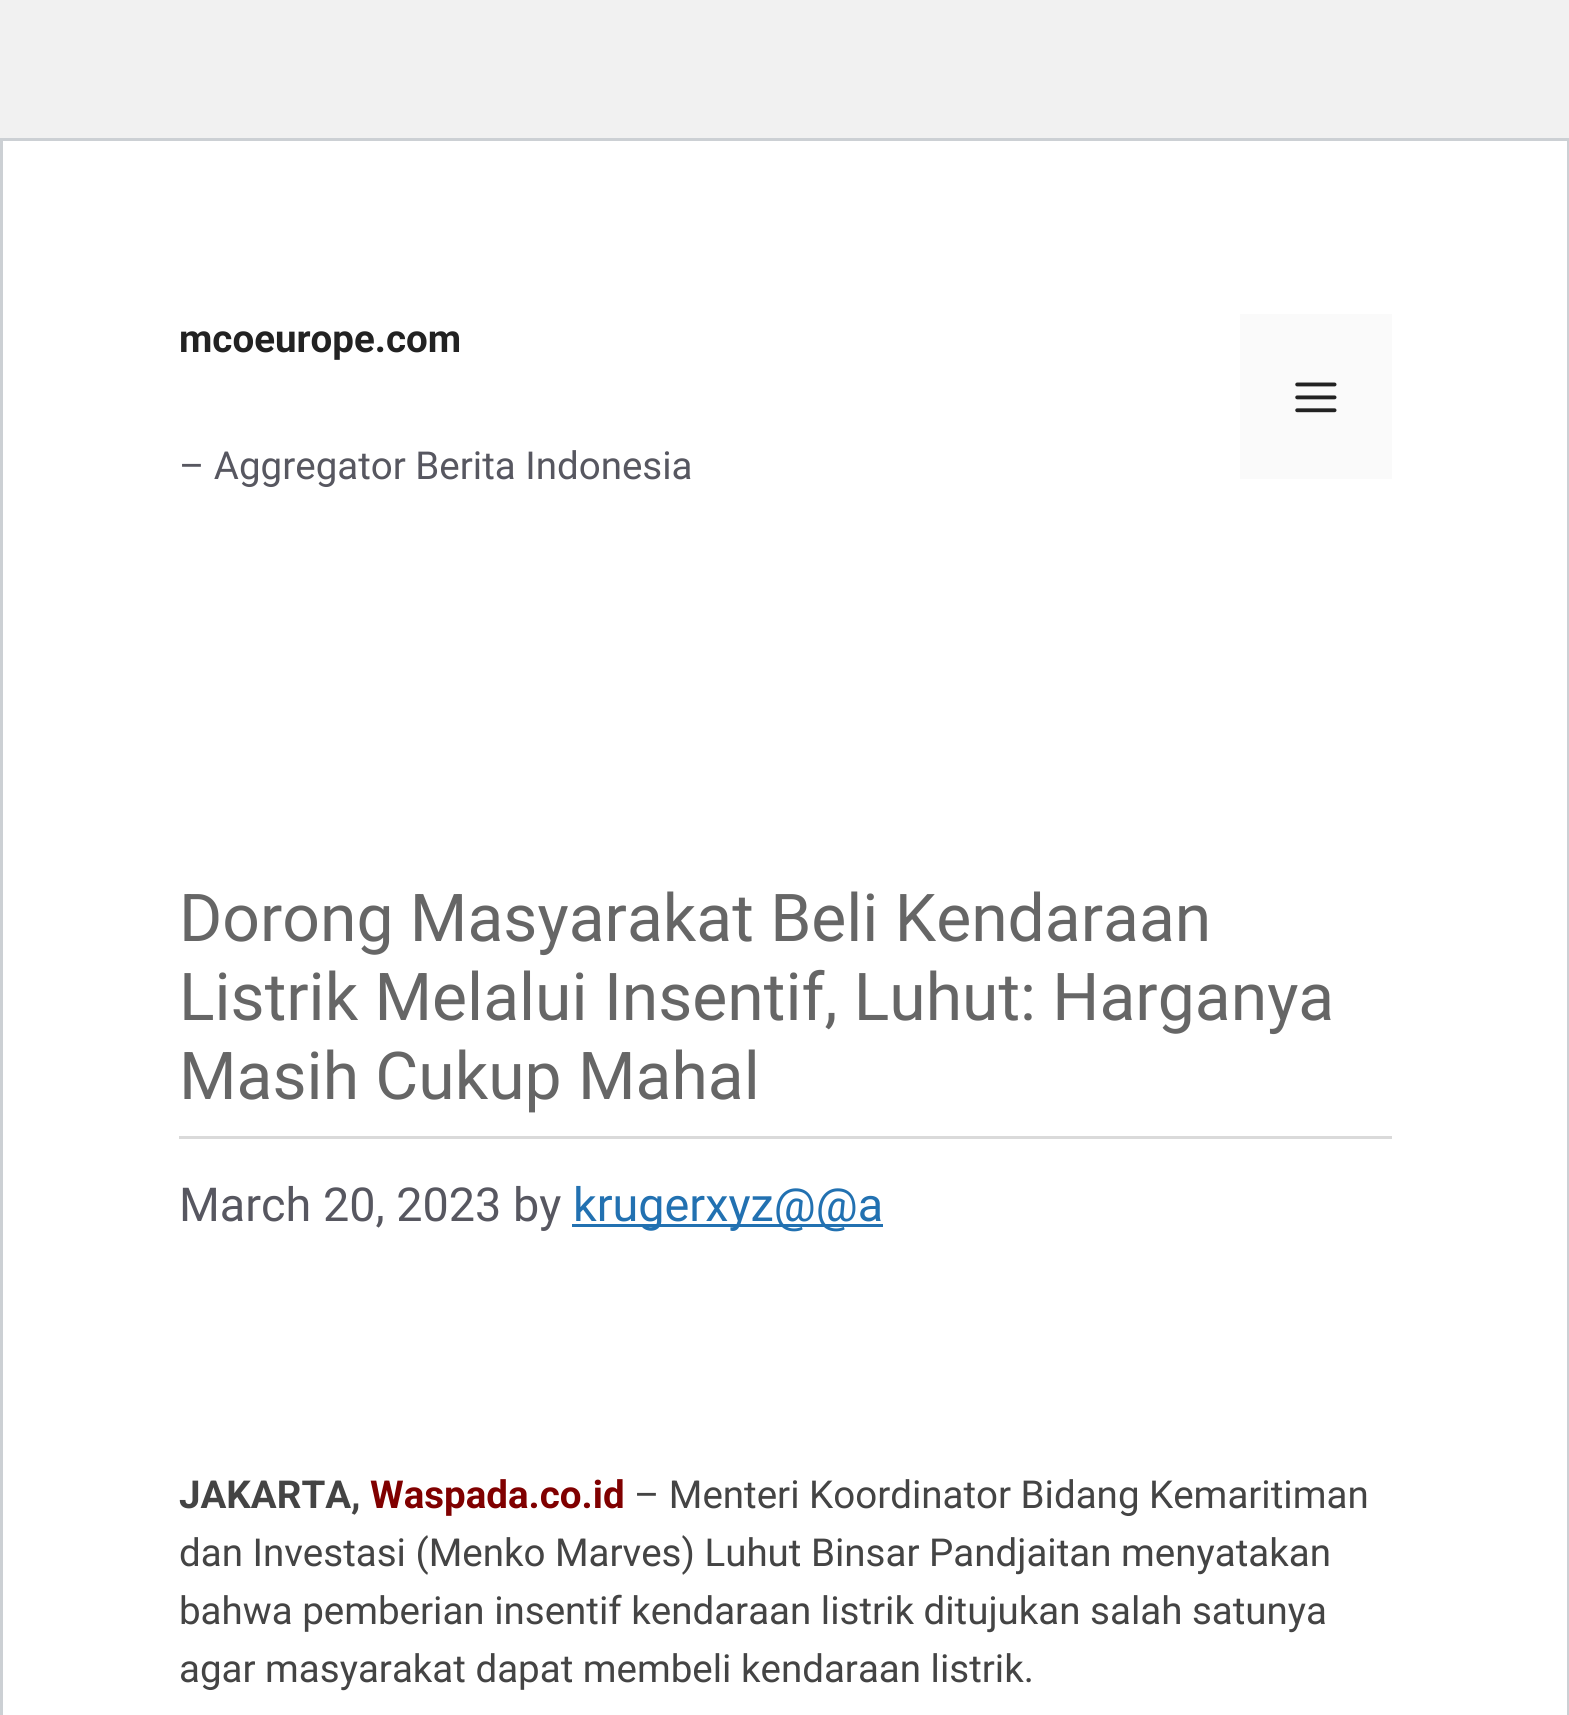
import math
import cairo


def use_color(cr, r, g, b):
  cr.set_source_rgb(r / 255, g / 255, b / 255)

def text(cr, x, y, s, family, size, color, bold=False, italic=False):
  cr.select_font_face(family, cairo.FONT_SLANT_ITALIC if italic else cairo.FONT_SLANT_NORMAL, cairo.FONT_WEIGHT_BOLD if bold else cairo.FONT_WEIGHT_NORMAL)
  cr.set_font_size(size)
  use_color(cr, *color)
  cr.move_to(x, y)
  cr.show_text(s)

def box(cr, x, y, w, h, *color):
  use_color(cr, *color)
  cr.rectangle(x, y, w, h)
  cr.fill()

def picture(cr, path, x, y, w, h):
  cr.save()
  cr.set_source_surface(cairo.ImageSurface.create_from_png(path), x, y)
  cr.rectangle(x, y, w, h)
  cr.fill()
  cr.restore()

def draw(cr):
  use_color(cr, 241, 241, 241)
  cr.paint()
  use_color(cr, 255, 255, 255)
  cr.rectangle(1.5, 139.5, 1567, 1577)
  cr.fill_preserve()
  use_color(cr, 204, 208, 212)
  cr.set_line_width(3)
  cr.stroke()
  box(cr, 1240, 314, 152, 165, 250, 250, 250)
  picture(cr, "img_01.png", 1295, 382, 42, 31)
  box(cr, 179, 1136, 1213, 3, 218, 218, 218)
  box(cr, 572, 1224, 311, 3, 34, 113, 177)
  text(cr, 179, 352, "mcoeurope.com", "Roboto", 38.5, (34, 34, 34), bold=True)
  text(cr, 179, 479, "– Aggregator Berita Indonesia", "Roboto", 38.5, (87, 87, 96))
  text(cr, 179, 941, "Dorong Masyarakat Beli Kendaraan", "Roboto", 66, (102, 102, 102))
  text(cr, 179, 1020, "Listrik Melalui Insentif, Luhut: Harganya", "Roboto", 66, (102, 102, 102))
  text(cr, 179, 1099, "Masih Cukup Mahal", "Roboto", 66, (102, 102, 102))
  text(cr, 179, 1221, "March 20, 2023 by", "Roboto", 46.75, (87, 87, 96))
  text(cr, 573, 1221, "krugerxyz@@a", "Roboto", 46.75, (34, 113, 177))
  text(cr, 179, 1508, "JAKARTA,", "Roboto", 38.5, (68, 68, 68), bold=True)
  text(cr, 370, 1508, "Waspada.co.id", "Roboto", 38.5, (128, 0, 0), bold=True)
  text(cr, 634, 1508, "– Menteri Koordinator Bidang Kemaritiman", "Roboto", 38.5, (68, 68, 68))
  text(cr, 179, 1566, "dan Investasi (Menko Marves) Luhut Binsar Pandjaitan menyatakan", "Roboto", 38.5, (68, 68, 68))
  text(cr, 179, 1624, "bahwa pemberian insentif kendaraan listrik ditujukan salah satunya", "Roboto", 38.5, (68, 68, 68))
  text(cr, 179, 1682, "agar masyarakat dapat membeli kendaraan listrik.", "Roboto", 38.5, (68, 68, 68))


surface = cairo.ImageSurface(cairo.FORMAT_RGB24, 1569, 1715)
cr = cairo.Context(surface)
options = cairo.FontOptions()
options.set_hint_metrics(cairo.HINT_METRICS_OFF)
options.set_hint_style(cairo.HINT_STYLE_NONE)
cr.set_font_options(options)
cr.set_miter_limit(4)
draw(cr)
surface.write_to_png("out.png")
